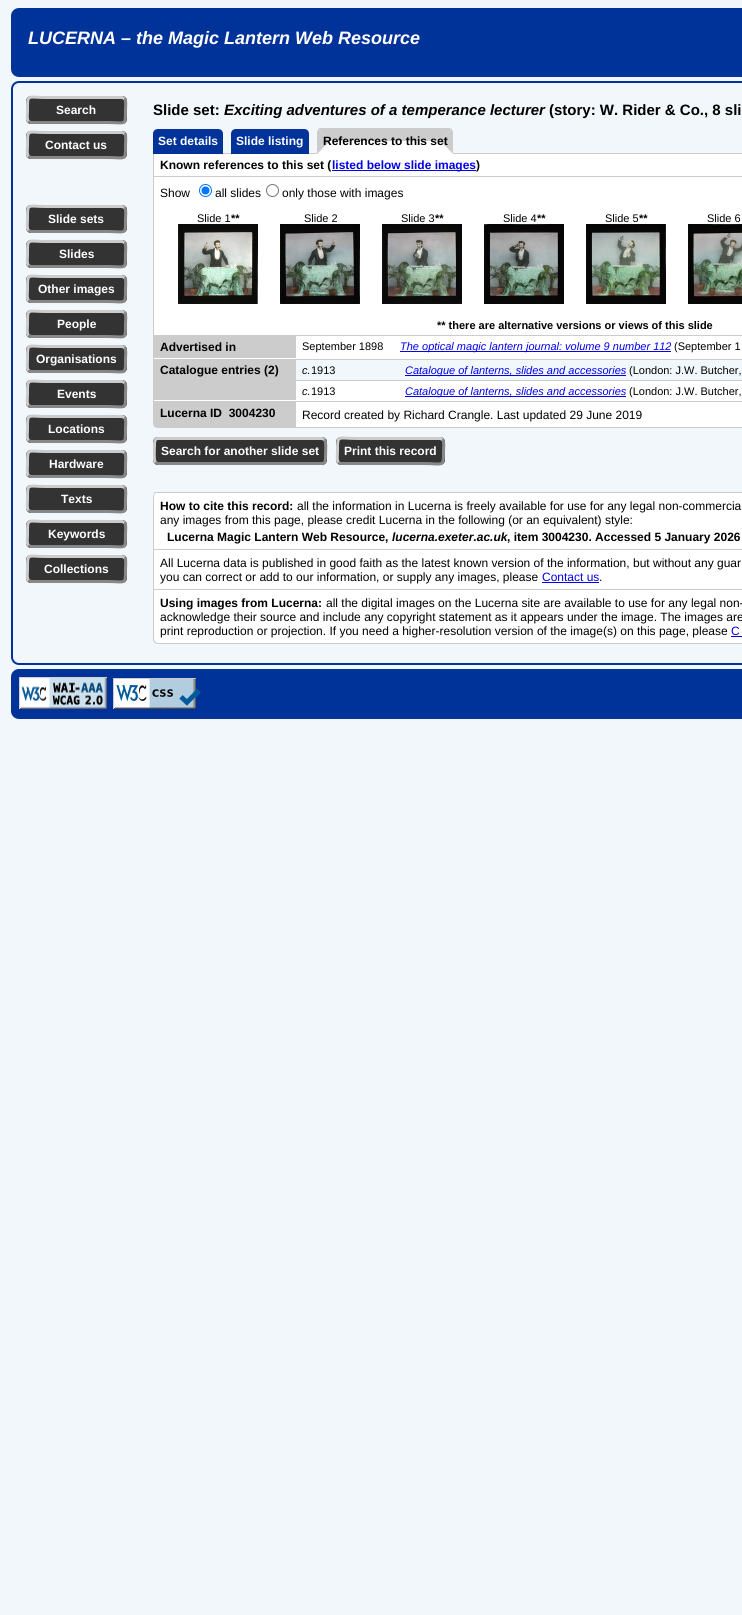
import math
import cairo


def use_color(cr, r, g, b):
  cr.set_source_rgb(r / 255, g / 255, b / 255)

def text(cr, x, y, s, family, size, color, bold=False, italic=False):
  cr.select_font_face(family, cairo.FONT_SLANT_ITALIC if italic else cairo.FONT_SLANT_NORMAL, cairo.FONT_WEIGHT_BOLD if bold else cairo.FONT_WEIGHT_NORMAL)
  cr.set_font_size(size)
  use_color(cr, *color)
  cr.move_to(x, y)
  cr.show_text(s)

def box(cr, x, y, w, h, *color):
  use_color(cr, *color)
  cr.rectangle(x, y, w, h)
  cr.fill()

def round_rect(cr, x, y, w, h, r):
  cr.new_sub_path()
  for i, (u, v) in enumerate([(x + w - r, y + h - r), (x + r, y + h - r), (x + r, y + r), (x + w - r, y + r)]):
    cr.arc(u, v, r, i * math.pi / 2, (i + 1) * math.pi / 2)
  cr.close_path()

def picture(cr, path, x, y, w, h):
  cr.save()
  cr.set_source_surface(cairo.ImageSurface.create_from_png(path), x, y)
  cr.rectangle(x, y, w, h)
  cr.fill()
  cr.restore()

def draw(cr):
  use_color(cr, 241, 247, 251)
  cr.paint()
  use_color(cr, 0, 51, 153)
  round_rect(cr, 12, 9, 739, 67, 7)
  cr.fill_preserve()
  cr.stroke()
  round_rect(cr, 12, 82, 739, 582, 7)
  cr.stroke()
  use_color(cr, 51, 51, 51)
  round_rect(cr, 26, 96, 101, 28, 5)
  cr.fill()
  cr.new_path()
  cr.move_to(124.5, 98.5)
  cr.curve_to(126.5, 100.5, 125.5, 107.5, 125.5, 110)
  cr.curve_to(125.5, 126.5, 126, 122.5, 107, 122.5)
  cr.line_to(31, 122.5)
  cr.line_to(28.5, 121.5)
  use_color(cr, 136, 136, 136)
  cr.set_line_width(3)
  cr.stroke()
  cr.new_path()
  cr.move_to(28.5, 121.5)
  cr.curve_to(26.5, 119.5, 27.5, 112.5, 27.5, 110)
  cr.curve_to(27.5, 93.5, 27, 97.5, 46, 97.5)
  cr.line_to(122, 97.5)
  cr.line_to(124.5, 98.5)
  use_color(cr, 204, 204, 204)
  cr.stroke()
  use_color(cr, 51, 51, 51)
  round_rect(cr, 26, 131, 101, 28, 5)
  cr.fill()
  cr.new_path()
  cr.move_to(124.5, 133.5)
  cr.curve_to(126.5, 135.5, 125.5, 142.5, 125.5, 145)
  cr.curve_to(125.5, 161.5, 126, 157.5, 107, 157.5)
  cr.line_to(31, 157.5)
  cr.line_to(28.5, 156.5)
  use_color(cr, 136, 136, 136)
  cr.stroke()
  cr.new_path()
  cr.move_to(28.5, 156.5)
  cr.curve_to(26.5, 154.5, 27.5, 147.5, 27.5, 145)
  cr.curve_to(27.5, 128.5, 27, 132.5, 46, 132.5)
  cr.line_to(122, 132.5)
  cr.line_to(124.5, 133.5)
  use_color(cr, 204, 204, 204)
  cr.stroke()
  use_color(cr, 51, 51, 51)
  round_rect(cr, 26, 205, 101, 28, 5)
  cr.fill()
  cr.new_path()
  cr.move_to(124.5, 207.5)
  cr.curve_to(126.5, 209.5, 125.5, 216.5, 125.5, 219)
  cr.curve_to(125.5, 235.5, 126, 231.5, 107, 231.5)
  cr.line_to(31, 231.5)
  cr.line_to(28.5, 230.5)
  use_color(cr, 136, 136, 136)
  cr.stroke()
  cr.new_path()
  cr.move_to(28.5, 230.5)
  cr.curve_to(26.5, 228.5, 27.5, 221.5, 27.5, 219)
  cr.curve_to(27.5, 202.5, 27, 206.5, 46, 206.5)
  cr.line_to(122, 206.5)
  cr.line_to(124.5, 207.5)
  use_color(cr, 204, 204, 204)
  cr.stroke()
  use_color(cr, 51, 51, 51)
  round_rect(cr, 26, 240, 101, 28, 5)
  cr.fill()
  cr.new_path()
  cr.move_to(124.5, 242.5)
  cr.curve_to(126.5, 244.5, 125.5, 251.5, 125.5, 254)
  cr.curve_to(125.5, 270.5, 126, 266.5, 107, 266.5)
  cr.line_to(31, 266.5)
  cr.line_to(28.5, 265.5)
  use_color(cr, 136, 136, 136)
  cr.stroke()
  cr.new_path()
  cr.move_to(28.5, 265.5)
  cr.curve_to(26.5, 263.5, 27.5, 256.5, 27.5, 254)
  cr.curve_to(27.5, 237.5, 27, 241.5, 46, 241.5)
  cr.line_to(122, 241.5)
  cr.line_to(124.5, 242.5)
  use_color(cr, 204, 204, 204)
  cr.stroke()
  use_color(cr, 51, 51, 51)
  round_rect(cr, 26, 275, 101, 28, 5)
  cr.fill()
  cr.new_path()
  cr.move_to(124.5, 277.5)
  cr.curve_to(126.5, 279.5, 125.5, 286.5, 125.5, 289)
  cr.curve_to(125.5, 305.5, 126, 301.5, 107, 301.5)
  cr.line_to(31, 301.5)
  cr.line_to(28.5, 300.5)
  use_color(cr, 136, 136, 136)
  cr.stroke()
  cr.new_path()
  cr.move_to(28.5, 300.5)
  cr.curve_to(26.5, 298.5, 27.5, 291.5, 27.5, 289)
  cr.curve_to(27.5, 272.5, 27, 276.5, 46, 276.5)
  cr.line_to(122, 276.5)
  cr.line_to(124.5, 277.5)
  use_color(cr, 204, 204, 204)
  cr.stroke()
  use_color(cr, 51, 51, 51)
  round_rect(cr, 26, 310, 101, 28, 5)
  cr.fill()
  cr.new_path()
  cr.move_to(124.5, 312.5)
  cr.curve_to(126.5, 314.5, 125.5, 321.5, 125.5, 324)
  cr.curve_to(125.5, 340.5, 126, 336.5, 107, 336.5)
  cr.line_to(31, 336.5)
  cr.line_to(28.5, 335.5)
  use_color(cr, 136, 136, 136)
  cr.stroke()
  cr.new_path()
  cr.move_to(28.5, 335.5)
  cr.curve_to(26.5, 333.5, 27.5, 326.5, 27.5, 324)
  cr.curve_to(27.5, 307.5, 27, 311.5, 46, 311.5)
  cr.line_to(122, 311.5)
  cr.line_to(124.5, 312.5)
  use_color(cr, 204, 204, 204)
  cr.stroke()
  use_color(cr, 51, 51, 51)
  round_rect(cr, 26, 345, 101, 28, 5)
  cr.fill()
  cr.new_path()
  cr.move_to(124.5, 347.5)
  cr.curve_to(126.5, 349.5, 125.5, 356.5, 125.5, 359)
  cr.curve_to(125.5, 375.5, 126, 371.5, 107, 371.5)
  cr.line_to(31, 371.5)
  cr.line_to(28.5, 370.5)
  use_color(cr, 136, 136, 136)
  cr.stroke()
  cr.new_path()
  cr.move_to(28.5, 370.5)
  cr.curve_to(26.5, 368.5, 27.5, 361.5, 27.5, 359)
  cr.curve_to(27.5, 342.5, 27, 346.5, 46, 346.5)
  cr.line_to(122, 346.5)
  cr.line_to(124.5, 347.5)
  use_color(cr, 204, 204, 204)
  cr.stroke()
  use_color(cr, 51, 51, 51)
  round_rect(cr, 26, 380, 101, 28, 5)
  cr.fill()
  cr.new_path()
  cr.move_to(124.5, 382.5)
  cr.curve_to(126.5, 384.5, 125.5, 391.5, 125.5, 394)
  cr.curve_to(125.5, 410.5, 126, 406.5, 107, 406.5)
  cr.line_to(31, 406.5)
  cr.line_to(28.5, 405.5)
  use_color(cr, 136, 136, 136)
  cr.stroke()
  cr.new_path()
  cr.move_to(28.5, 405.5)
  cr.curve_to(26.5, 403.5, 27.5, 396.5, 27.5, 394)
  cr.curve_to(27.5, 377.5, 27, 381.5, 46, 381.5)
  cr.line_to(122, 381.5)
  cr.line_to(124.5, 382.5)
  use_color(cr, 204, 204, 204)
  cr.stroke()
  use_color(cr, 51, 51, 51)
  round_rect(cr, 26, 415, 101, 28, 5)
  cr.fill()
  cr.new_path()
  cr.move_to(124.5, 417.5)
  cr.curve_to(126.5, 419.5, 125.5, 426.5, 125.5, 429)
  cr.curve_to(125.5, 445.5, 126, 441.5, 107, 441.5)
  cr.line_to(31, 441.5)
  cr.line_to(28.5, 440.5)
  use_color(cr, 136, 136, 136)
  cr.stroke()
  cr.new_path()
  cr.move_to(28.5, 440.5)
  cr.curve_to(26.5, 438.5, 27.5, 431.5, 27.5, 429)
  cr.curve_to(27.5, 412.5, 27, 416.5, 46, 416.5)
  cr.line_to(122, 416.5)
  cr.line_to(124.5, 417.5)
  use_color(cr, 204, 204, 204)
  cr.stroke()
  use_color(cr, 51, 51, 51)
  round_rect(cr, 26, 450, 101, 28, 5)
  cr.fill()
  cr.new_path()
  cr.move_to(124.5, 452.5)
  cr.curve_to(126.5, 454.5, 125.5, 461.5, 125.5, 464)
  cr.curve_to(125.5, 480.5, 126, 476.5, 107, 476.5)
  cr.line_to(31, 476.5)
  cr.line_to(28.5, 475.5)
  use_color(cr, 136, 136, 136)
  cr.stroke()
  cr.new_path()
  cr.move_to(28.5, 475.5)
  cr.curve_to(26.5, 473.5, 27.5, 466.5, 27.5, 464)
  cr.curve_to(27.5, 447.5, 27, 451.5, 46, 451.5)
  cr.line_to(122, 451.5)
  cr.line_to(124.5, 452.5)
  use_color(cr, 204, 204, 204)
  cr.stroke()
  use_color(cr, 51, 51, 51)
  round_rect(cr, 26, 485, 101, 28, 5)
  cr.fill()
  cr.new_path()
  cr.move_to(124.5, 487.5)
  cr.curve_to(126.5, 489.5, 125.5, 496.5, 125.5, 499)
  cr.curve_to(125.5, 515.5, 126, 511.5, 107, 511.5)
  cr.line_to(31, 511.5)
  cr.line_to(28.5, 510.5)
  use_color(cr, 136, 136, 136)
  cr.stroke()
  cr.new_path()
  cr.move_to(28.5, 510.5)
  cr.curve_to(26.5, 508.5, 27.5, 501.5, 27.5, 499)
  cr.curve_to(27.5, 482.5, 27, 486.5, 46, 486.5)
  cr.line_to(122, 486.5)
  cr.line_to(124.5, 487.5)
  use_color(cr, 204, 204, 204)
  cr.stroke()
  use_color(cr, 51, 51, 51)
  round_rect(cr, 26, 520, 101, 28, 5)
  cr.fill()
  cr.new_path()
  cr.move_to(124.5, 522.5)
  cr.curve_to(126.5, 524.5, 125.5, 531.5, 125.5, 534)
  cr.curve_to(125.5, 550.5, 126, 546.5, 107, 546.5)
  cr.line_to(31, 546.5)
  cr.line_to(28.5, 545.5)
  use_color(cr, 136, 136, 136)
  cr.stroke()
  cr.new_path()
  cr.move_to(28.5, 545.5)
  cr.curve_to(26.5, 543.5, 27.5, 536.5, 27.5, 534)
  cr.curve_to(27.5, 517.5, 27, 521.5, 46, 521.5)
  cr.line_to(122, 521.5)
  cr.line_to(124.5, 522.5)
  use_color(cr, 204, 204, 204)
  cr.stroke()
  use_color(cr, 51, 51, 51)
  round_rect(cr, 26, 555, 101, 28, 5)
  cr.fill()
  cr.new_path()
  cr.move_to(124.5, 557.5)
  cr.curve_to(126.5, 559.5, 125.5, 566.5, 125.5, 569)
  cr.curve_to(125.5, 585.5, 126, 581.5, 107, 581.5)
  cr.line_to(31, 581.5)
  cr.line_to(28.5, 580.5)
  use_color(cr, 136, 136, 136)
  cr.stroke()
  cr.new_path()
  cr.move_to(28.5, 580.5)
  cr.curve_to(26.5, 578.5, 27.5, 571.5, 27.5, 569)
  cr.curve_to(27.5, 552.5, 27, 556.5, 46, 556.5)
  cr.line_to(122, 556.5)
  cr.line_to(124.5, 557.5)
  use_color(cr, 204, 204, 204)
  cr.stroke()
  box(cr, 154, 154, 588, 22, 255, 255, 255)
  use_color(cr, 204, 204, 204)
  cr.set_fill_rule(cairo.FILL_RULE_EVEN_ODD)
  cr.new_path()
  cr.move_to(153, 153)
  cr.line_to(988, 153)
  cr.curve_to(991, 153, 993, 155, 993, 158)
  cr.line_to(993, 176)
  cr.line_to(153, 176)
  cr.close_path()
  cr.move_to(154, 154)
  cr.line_to(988, 154)
  cr.curve_to(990, 154, 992, 156, 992, 158)
  cr.line_to(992, 176)
  cr.line_to(154, 176)
  cr.close_path()
  cr.fill()
  use_color(cr, 0, 51, 153)
  cr.new_path()
  cr.move_to(158, 129)
  cr.line_to(218, 129)
  cr.curve_to(221, 129, 223, 131, 223, 134)
  cr.line_to(223, 154)
  cr.line_to(153, 154)
  cr.line_to(153, 134)
  cr.curve_to(153, 131, 155, 129, 158, 129)
  cr.close_path()
  cr.fill()
  cr.new_path()
  cr.move_to(236, 129)
  cr.line_to(304, 129)
  cr.curve_to(307, 129, 309, 131, 309, 134)
  cr.line_to(309, 154)
  cr.line_to(231, 154)
  cr.line_to(231, 134)
  cr.curve_to(231, 131, 233, 129, 236, 129)
  cr.close_path()
  cr.fill()
  use_color(cr, 204, 204, 204)
  cr.set_fill_rule(cairo.FILL_RULE_WINDING)
  cr.new_path()
  cr.move_to(322, 128)
  cr.line_to(449, 128)
  cr.line_to(452, 129)
  cr.line_to(440, 141)
  cr.line_to(330, 141)
  cr.line_to(318, 129)
  cr.curve_to(319, 128, 320, 128, 322, 128)
  cr.close_path()
  cr.fill()
  cr.new_path()
  cr.move_to(451.5, 129.5)
  cr.line_to(440, 141)
  cr.line_to(453, 154)
  cr.line_to(453, 133)
  cr.curve_to(453, 131.5, 452.5, 130, 451.5, 129.5)
  cr.close_path()
  cr.fill()
  use_color(cr, 255, 255, 255)
  cr.new_path()
  cr.move_to(453, 154)
  cr.line_to(440, 141)
  cr.line_to(330, 141)
  cr.line_to(317, 154)
  cr.close_path()
  cr.fill()
  use_color(cr, 204, 204, 204)
  cr.new_path()
  cr.move_to(317, 154)
  cr.line_to(317, 133)
  cr.curve_to(317, 131.5, 317.5, 130, 318.5, 129.5)
  cr.line_to(330, 141)
  cr.close_path()
  cr.fill()
  box(cr, 332, 170, 144, 1, 0, 0, 238)
  box(cr, 154, 177, 588, 158, 255, 255, 255)
  box(cr, 153, 176, 589, 1, 204, 204, 204)
  box(cr, 153, 176, 1, 159, 204, 204, 204)
  cr.arc(205.5, 190.5, 6, 0, 2 * math.pi)
  use_color(cr, 0, 117, 255)
  cr.set_line_width(1)
  cr.stroke()
  cr.arc(205.5, 190.5, 4, 0, 2 * math.pi)
  cr.fill()
  cr.arc(272.5, 190.5, 6, 0, 2 * math.pi)
  use_color(cr, 118, 118, 118)
  cr.stroke()
  picture(cr, "img_01.png", 178, 224, 80, 80)
  picture(cr, "img_02.png", 280, 224, 80, 80)
  picture(cr, "img_03.png", 382, 224, 80, 80)
  picture(cr, "img_04.png", 484, 224, 80, 80)
  picture(cr, "img_05.png", 586, 224, 80, 80)
  picture(cr, "img_06.png", 688, 224, 54, 80)
  box(cr, 296, 336, 446, 65, 255, 255, 255)
  box(cr, 153, 335, 589, 1, 204, 204, 204)
  box(cr, 153, 335, 1, 66, 204, 204, 204)
  box(cr, 154, 336, 142, 22, 204, 204, 204)
  box(cr, 154, 358, 142, 1, 255, 255, 255)
  box(cr, 400, 351, 271, 1, 0, 0, 238)
  box(cr, 154, 359, 142, 41, 204, 204, 204)
  box(cr, 154, 400, 142, 1, 255, 255, 255)
  box(cr, 296, 359, 446, 1, 204, 204, 204)
  box(cr, 296, 360, 446, 20, 241, 247, 251)
  box(cr, 405, 375, 221, 1, 0, 0, 238)
  box(cr, 296, 380, 446, 1, 204, 204, 204)
  box(cr, 405, 396, 221, 1, 0, 0, 238)
  use_color(cr, 255, 255, 255)
  cr.new_path()
  cr.move_to(153.5, 401.5)
  cr.line_to(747.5, 401.5)
  cr.line_to(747.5, 423)
  cr.curve_to(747.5, 425.5, 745.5, 427.5, 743, 427.5)
  cr.line_to(158, 427.5)
  cr.curve_to(155.5, 427.5, 153.5, 425.5, 153.5, 423)
  cr.close_path()
  cr.fill_preserve()
  use_color(cr, 204, 204, 204)
  cr.stroke()
  box(cr, 154, 402, 142, 25, 204, 204, 204)
  use_color(cr, 51, 51, 51)
  round_rect(cr, 153, 437, 174, 28, 5)
  cr.fill()
  cr.new_path()
  cr.move_to(324.5, 439.5)
  cr.curve_to(326.5, 441.5, 325.5, 453.5, 325.5, 457)
  cr.curve_to(325.5, 459.5, 325.5, 463.5, 322, 463.5)
  cr.line_to(158, 463.5)
  cr.line_to(155.5, 462.5)
  use_color(cr, 136, 136, 136)
  cr.set_line_width(3)
  cr.stroke()
  cr.save()
  cr.rectangle(153, 428, 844, 50)
  cr.clip()
  cr.new_path()
  cr.move_to(155.5, 462.5)
  cr.curve_to(153.5, 460.5, 154.5, 448.5, 154.5, 445)
  cr.curve_to(154.5, 442.5, 154.5, 438.5, 158, 438.5)
  cr.line_to(322, 438.5)
  cr.line_to(324.5, 439.5)
  use_color(cr, 204, 204, 204)
  cr.stroke()
  cr.restore()
  use_color(cr, 51, 51, 51)
  round_rect(cr, 336, 437, 109, 28, 5)
  cr.fill()
  cr.new_path()
  cr.move_to(442.5, 439.5)
  cr.curve_to(444.5, 441.5, 443.5, 448.5, 443.5, 451)
  cr.curve_to(443.5, 468, 443.5, 463.5, 423.5, 463.5)
  cr.line_to(340.5, 463.5)
  cr.line_to(338.5, 462.5)
  use_color(cr, 136, 136, 136)
  cr.stroke()
  cr.new_path()
  cr.move_to(338.5, 462.5)
  cr.curve_to(336.5, 460.5, 337.5, 453.5, 337.5, 451)
  cr.curve_to(337.5, 434, 337.5, 438.5, 357.5, 438.5)
  cr.line_to(440.5, 438.5)
  cr.line_to(442.5, 439.5)
  use_color(cr, 204, 204, 204)
  cr.stroke()
  use_color(cr, 255, 255, 255)
  round_rect(cr, 153, 492, 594, 152, 5)
  cr.fill()
  use_color(cr, 204, 204, 204)
  cr.set_fill_rule(cairo.FILL_RULE_EVEN_ODD)
  cr.new_path()
  cr.move_to(158, 492)
  cr.line_to(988, 492)
  cr.curve_to(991, 492, 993, 494, 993, 497)
  cr.line_to(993, 639)
  cr.curve_to(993, 642, 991, 644, 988, 644)
  cr.line_to(158, 644)
  cr.curve_to(155, 644, 153, 642, 153, 639)
  cr.line_to(153, 497)
  cr.curve_to(153, 494, 155, 492, 158, 492)
  cr.close_path()
  cr.move_to(158, 492)
  cr.line_to(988, 492)
  cr.curve_to(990, 492, 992, 494, 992, 497)
  cr.line_to(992, 639)
  cr.curve_to(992, 641, 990, 643, 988, 643)
  cr.line_to(158, 643)
  cr.curve_to(156, 643, 154, 641, 154, 639)
  cr.line_to(154, 497)
  cr.curve_to(154, 494, 156, 492, 158, 492)
  cr.close_path()
  cr.fill()
  box(cr, 154, 492, 588, 1, 204, 204, 204)
  box(cr, 154, 549, 588, 1, 204, 204, 204)
  box(cr, 542, 582, 57, 1, 0, 0, 238)
  box(cr, 154, 589, 588, 1, 204, 204, 204)
  box(cr, 731, 636, 11, 1, 0, 0, 238)
  use_color(cr, 0, 51, 153)
  round_rect(cr, 12, 670, 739, 48, 7)
  cr.fill_preserve()
  cr.set_line_width(2)
  cr.stroke()
  picture(cr, "img_07.png", 19, 677, 88, 32)
  picture(cr, "img_08.png", 113, 678, 88, 31)
  text(cr, 28, 44, "LUCERNA – the Magic Lantern Web Resource", "Liberation Sans", 18, (255, 255, 255), bold=True, italic=True)
  text(cr, 56, 114, "Search", "Liberation Sans", 12, (255, 255, 255), bold=True)
  text(cr, 45, 149, "Contact us", "Liberation Sans", 12, (255, 255, 255), bold=True)
  text(cr, 48, 223, "Slide sets", "Liberation Sans", 12, (255, 255, 255), bold=True)
  text(cr, 59, 258, "Slides", "Liberation Sans", 12, (255, 255, 255), bold=True)
  text(cr, 38, 293, "Other images", "Liberation Sans", 12, (255, 255, 255), bold=True)
  text(cr, 57, 328, "People", "Liberation Sans", 12, (255, 255, 255), bold=True)
  text(cr, 36, 363, "Organisations", "Liberation Sans", 12, (255, 255, 255), bold=True)
  text(cr, 57, 398, "Events", "Liberation Sans", 12, (255, 255, 255), bold=True)
  text(cr, 48, 433, "Locations", "Liberation Sans", 12, (255, 255, 255), bold=True)
  text(cr, 49, 468, "Hardware", "Liberation Sans", 12, (255, 255, 255), bold=True)
  text(cr, 61, 503, "Texts", "Liberation Sans", 12, (255, 255, 255), bold=True)
  text(cr, 48, 538, "Keywords", "Liberation Sans", 12, (255, 255, 255), bold=True)
  text(cr, 44, 573, "Collections", "Liberation Sans", 12, (255, 255, 255), bold=True)
  text(cr, 153, 115, "Slide set:", "Liberation Sans", 15, (0, 0, 0), bold=True)
  text(cr, 224, 115, "Exciting adventures of a temperance lecturer", "Liberation Sans", 15, (0, 0, 0), bold=True, italic=True)
  text(cr, 549, 115, "(story: W. Rider & Co., 8 sli", "Liberation Sans", 15, (0, 0, 0), bold=True)
  text(cr, 158, 145, "Set details", "Liberation Sans", 12, (255, 255, 255), bold=True)
  text(cr, 236, 145, "Slide listing", "Liberation Sans", 12, (255, 255, 255), bold=True)
  text(cr, 323, 145, "References to this set", "Liberation Sans", 12, (0, 0, 0), bold=True)
  text(cr, 160, 169, "Known references to this set (", "Liberation Sans", 12, (0, 0, 0), bold=True)
  text(cr, 332, 169, "listed below slide images", "Liberation Sans", 12, (0, 0, 238), bold=True)
  text(cr, 476, 169, ")", "Liberation Sans", 12, (0, 0, 0), bold=True)
  text(cr, 160, 197, "Show", "Liberation Sans", 12, (0, 0, 0))
  text(cr, 215, 197, "all slides", "Liberation Sans", 12, (0, 0, 0))
  text(cr, 282, 197, "only those with images", "Liberation Sans", 12, (0, 0, 0))
  text(cr, 197, 222, "Slide 1", "Liberation Sans", 11, (0, 0, 0))
  text(cr, 231, 222, "**", "Liberation Sans", 11, (0, 0, 0), bold=True)
  text(cr, 304, 222, "Slide 2", "Liberation Sans", 11, (0, 0, 0))
  text(cr, 401, 222, "Slide 3", "Liberation Sans", 11, (0, 0, 0))
  text(cr, 435, 222, "**", "Liberation Sans", 11, (0, 0, 0), bold=True)
  text(cr, 503, 222, "Slide 4", "Liberation Sans", 11, (0, 0, 0))
  text(cr, 537, 222, "**", "Liberation Sans", 11, (0, 0, 0), bold=True)
  text(cr, 605, 222, "Slide 5", "Liberation Sans", 11, (0, 0, 0))
  text(cr, 639, 222, "**", "Liberation Sans", 11, (0, 0, 0), bold=True)
  text(cr, 707, 222, "Slide 6", "Liberation Sans", 11, (0, 0, 0))
  text(cr, 437, 329, "** there are alternative versions or views of this slide", "Liberation Sans", 11, (0, 0, 0), bold=True)
  text(cr, 160, 351, "Advertised in", "Liberation Sans", 12, (0, 0, 0), bold=True)
  text(cr, 302, 350, "September 1898", "Liberation Sans", 11, (0, 0, 0))
  text(cr, 400, 350, "The optical magic lantern journal: volume 9 number 112", "Liberation Sans", 11, (0, 0, 238), italic=True)
  text(cr, 674, 350, "(September 1", "Liberation Sans", 11, (0, 0, 0))
  text(cr, 160, 374, "Catalogue entries (2)", "Liberation Sans", 12, (0, 0, 0), bold=True)
  text(cr, 302, 374, "c.", "Liberation Sans", 11, (0, 0, 0), italic=True)
  text(cr, 311, 374, "1913", "Liberation Sans", 11, (0, 0, 0))
  text(cr, 405, 374, "Catalogue of lanterns, slides and accessories", "Liberation Sans", 11, (0, 0, 238), italic=True)
  text(cr, 629, 374, "(London: J.W. Butcher,", "Liberation Sans", 11, (0, 0, 0))
  text(cr, 302, 395, "c.", "Liberation Sans", 11, (0, 0, 0), italic=True)
  text(cr, 311, 395, "1913", "Liberation Sans", 11, (0, 0, 0))
  text(cr, 405, 395, "Catalogue of lanterns, slides and accessories", "Liberation Sans", 11, (0, 0, 238), italic=True)
  text(cr, 629, 395, "(London: J.W. Butcher,", "Liberation Sans", 11, (0, 0, 0))
  text(cr, 160, 417, "Lucerna ID  3004230", "Liberation Sans", 12, (0, 0, 0), bold=True)
  text(cr, 302, 419, "Record created by Richard Crangle. Last updated 29 June 2019", "Liberation Sans", 12, (0, 0, 0))
  text(cr, 161, 455, "Search for another slide set", "Liberation Sans", 12, (255, 255, 255), bold=True)
  text(cr, 344, 455, "Print this record", "Liberation Sans", 12, (255, 255, 255), bold=True)
  text(cr, 160, 510, "How to cite this record:", "Liberation Sans", 12, (0, 0, 0), bold=True)
  text(cr, 297, 510, "all the information in Lucerna is freely available for use for any legal non-commercia", "Liberation Sans", 12, (0, 0, 0))
  text(cr, 160, 524, "any images from this page, please credit Lucerna in the following (or an equivalent) style:", "Liberation Sans", 12, (0, 0, 0))
  text(cr, 167, 541, "Lucerna Magic Lantern Web Resource,", "Liberation Sans", 12, (0, 0, 0), bold=True)
  text(cr, 392, 541, "lucerna.exeter.ac.uk", "Liberation Sans", 12, (0, 0, 0), bold=True, italic=True)
  text(cr, 507, 541, ", item 3004230. Accessed 5 January 2026", "Liberation Sans", 12, (0, 0, 0), bold=True)
  text(cr, 160, 567, "All Lucerna data is published in good faith as the latest known version of the information, but without any guar", "Liberation Sans", 12, (0, 0, 0))
  text(cr, 160, 581, "you can correct or add to our information, or supply any images, please", "Liberation Sans", 12, (0, 0, 0))
  text(cr, 542, 581, "Contact us", "Liberation Sans", 12, (0, 0, 238))
  text(cr, 599, 581, ".", "Liberation Sans", 12, (0, 0, 0))
  text(cr, 160, 607, "Using images from Lucerna:", "Liberation Sans", 12, (0, 0, 0), bold=True)
  text(cr, 326, 607, "all the digital images on the Lucerna site are available to use for any legal non-", "Liberation Sans", 12, (0, 0, 0))
  text(cr, 160, 621, "acknowledge their source and include any copyright statement as it appears under the image. The images are", "Liberation Sans", 12, (0, 0, 0))
  text(cr, 160, 635, "print reproduction or projection. If you need a higher-resolution version of the image(s) on this page, please", "Liberation Sans", 12, (0, 0, 0))
  text(cr, 731, 635, "C", "Liberation Sans", 12, (0, 0, 238))


surface = cairo.ImageSurface(cairo.FORMAT_RGB24, 742, 1615)
cr = cairo.Context(surface)
options = cairo.FontOptions()
options.set_hint_metrics(cairo.HINT_METRICS_OFF)
options.set_hint_style(cairo.HINT_STYLE_NONE)
cr.set_font_options(options)
cr.set_miter_limit(4)
draw(cr)
surface.write_to_png("out.png")
